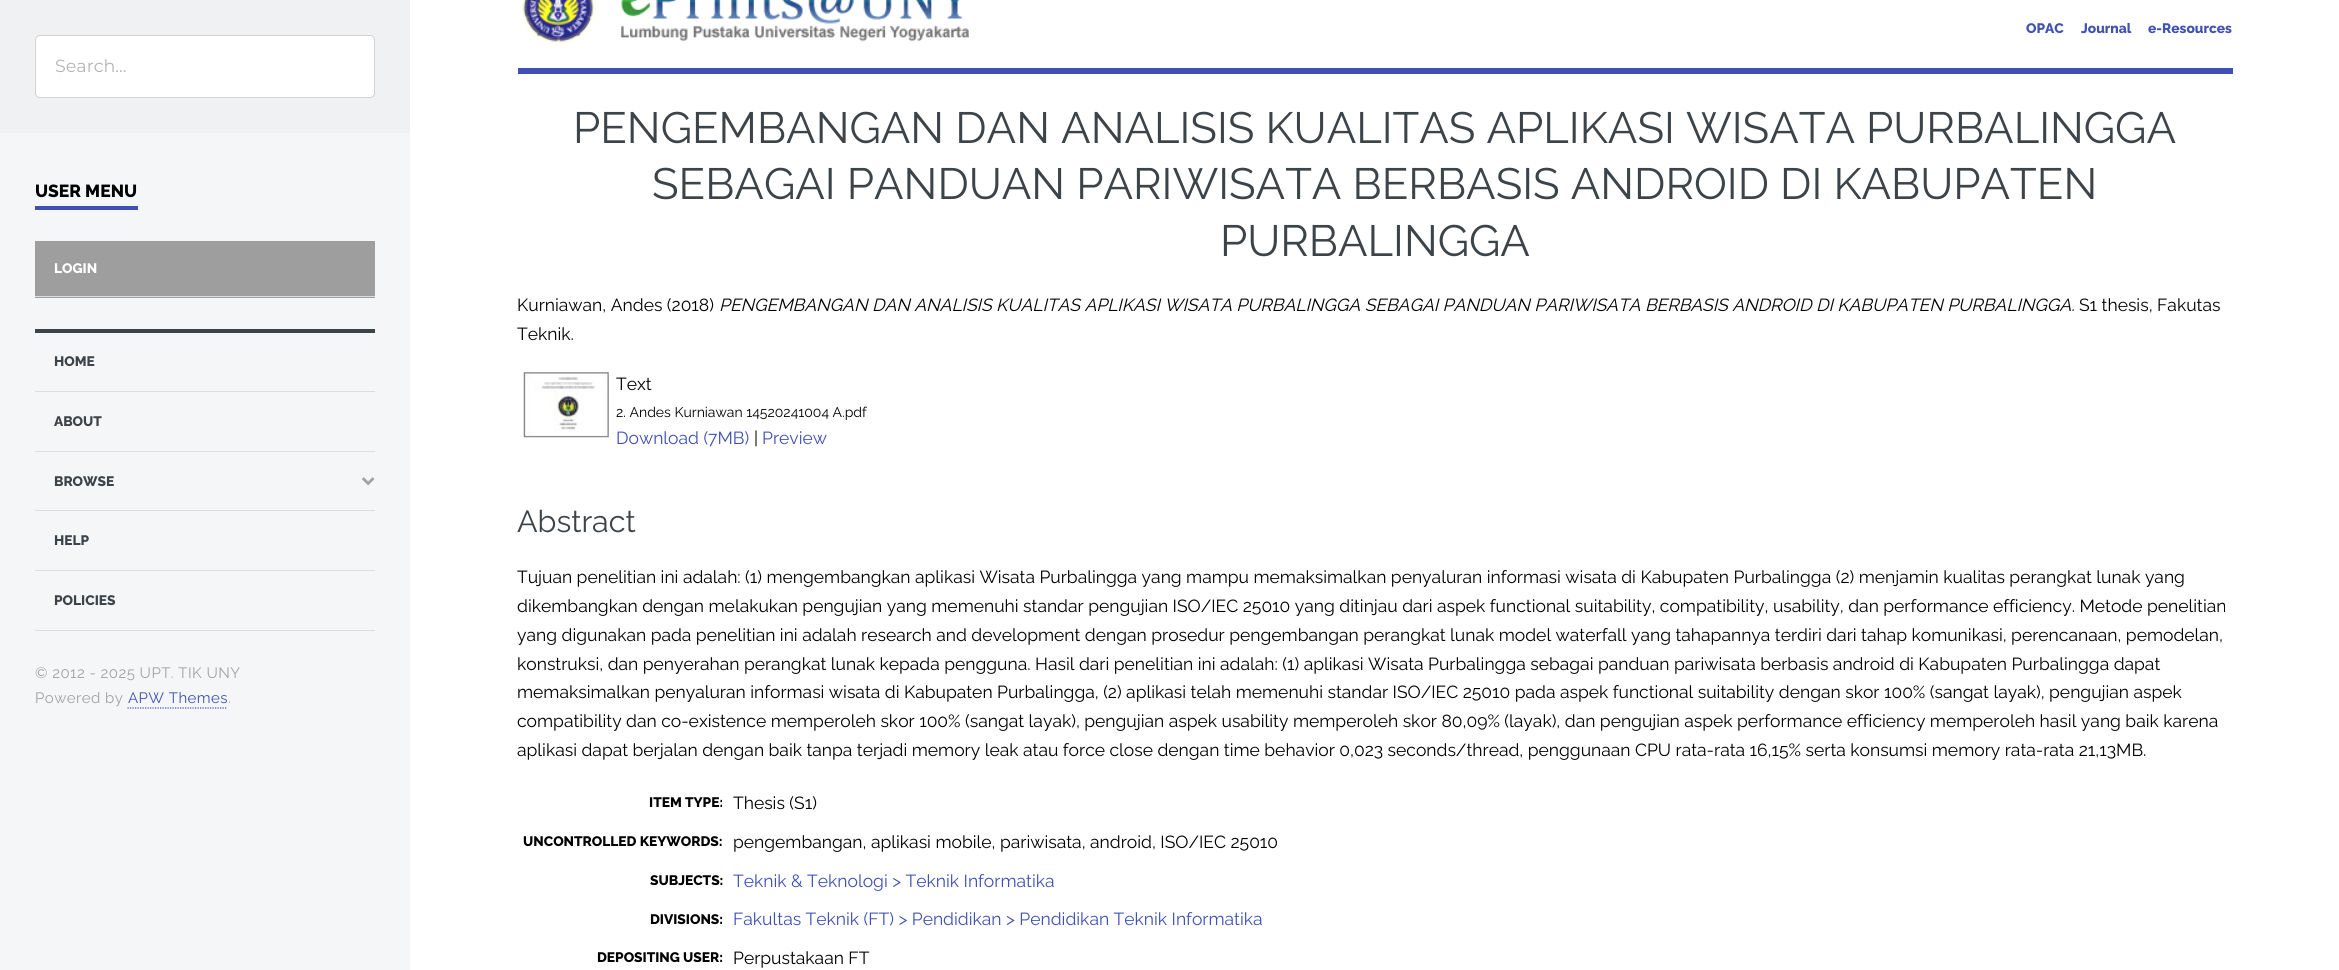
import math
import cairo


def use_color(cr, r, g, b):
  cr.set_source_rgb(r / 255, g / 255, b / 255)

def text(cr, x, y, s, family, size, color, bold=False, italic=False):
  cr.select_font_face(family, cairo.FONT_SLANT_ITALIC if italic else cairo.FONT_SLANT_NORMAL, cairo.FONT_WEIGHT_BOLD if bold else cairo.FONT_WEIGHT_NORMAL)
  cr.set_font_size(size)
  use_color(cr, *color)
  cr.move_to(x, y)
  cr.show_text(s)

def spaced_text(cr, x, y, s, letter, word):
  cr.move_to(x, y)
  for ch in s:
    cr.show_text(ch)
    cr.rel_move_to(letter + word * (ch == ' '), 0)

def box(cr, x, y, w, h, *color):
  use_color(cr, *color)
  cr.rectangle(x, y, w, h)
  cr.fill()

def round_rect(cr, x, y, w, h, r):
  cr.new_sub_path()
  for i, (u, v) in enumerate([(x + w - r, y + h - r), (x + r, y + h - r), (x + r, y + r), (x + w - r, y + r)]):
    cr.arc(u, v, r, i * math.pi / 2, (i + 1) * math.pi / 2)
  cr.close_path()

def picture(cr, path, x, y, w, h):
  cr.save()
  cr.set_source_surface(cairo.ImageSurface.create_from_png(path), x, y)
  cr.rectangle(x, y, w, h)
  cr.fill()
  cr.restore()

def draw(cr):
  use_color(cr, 255, 255, 255)
  cr.paint()
  box(cr, 0, 133, 410, 837, 245, 246, 247)
  box(cr, 0, 0, 410, 133, 239, 241, 242)
  use_color(cr, 255, 255, 255)
  round_rect(cr, 35.5, 35.5, 339, 62, 4.5)
  cr.fill_preserve()
  use_color(cr, 210, 210, 210)
  cr.set_line_width(1)
  cr.stroke()
  box(cr, 35, 206, 103, 4, 63, 81, 181)
  box(cr, 35, 241, 340, 57, 158, 158, 158)
  box(cr, 35, 296, 340, 1, 219, 223, 225)
  box(cr, 35, 329, 340, 4, 61, 68, 73)
  box(cr, 35, 391, 340, 1, 219, 223, 225)
  box(cr, 35, 451, 340, 1, 219, 223, 225)
  picture(cr, "img_01.png", 362, 477, 13, 9)
  box(cr, 35, 510, 340, 1, 219, 223, 225)
  box(cr, 35, 570, 340, 1, 219, 223, 225)
  box(cr, 35, 630, 340, 1, 219, 223, 225)
  cr.new_path()
  cr.move_to(127.5, 708)
  cr.line_to(227.5, 708)
  use_color(cr, 63, 81, 181)
  cr.set_line_width(1.2)
  cr.set_dash([1.25, 1.25])
  cr.stroke()
  box(cr, 518, 68, 1715, 6, 63, 81, 181)
  picture(cr, "img_02.png", 520, 0, 450, 45)
  picture(cr, "img_03.png", 523, 372, 86, 66)
  text(cr, 55, 72, "Search...", "Montserrat", 17.5, (181, 181, 181))
  text(cr, 35, 197, "USER MENU", "Raleway ExtraBold", 17.5, (0, 0, 0))
  text(cr, 54, 273, "LOGIN", "Raleway ExtraBold", 13.75, (255, 255, 255))
  text(cr, 54, 366, "HOME", "Raleway ExtraBold", 13.75, (61, 68, 73))
  text(cr, 54, 426, "ABOUT", "Raleway ExtraBold", 13.75, (61, 68, 73))
  text(cr, 54, 486, "BROWSE", "Raleway ExtraBold", 13.75, (61, 68, 73))
  text(cr, 54, 545, "HELP", "Raleway ExtraBold", 13.75, (61, 68, 73))
  text(cr, 54, 605, "POLICIES", "Raleway ExtraBold", 13.75, (61, 68, 73))
  cr.select_font_face("Raleway")
  cr.set_font_size(15)
  use_color(cr, 159, 163, 166)
  spaced_text(cr, 35, 678, "© 2012 - 2025 UPT. TIK UNY", 0.45, 0)
  spaced_text(cr, 35, 703, "Powered by", 0.45, 0)
  use_color(cr, 63, 81, 181)
  spaced_text(cr, 128, 703, "APW Themes", 0.45, 0)
  use_color(cr, 159, 163, 166)
  spaced_text(cr, 228, 703, ".", 0.45, 0)
  text(cr, 2026, 33, "OPAC", "Raleway ExtraBold", 13.75, (63, 81, 181))
  text(cr, 2081, 33, "Journal", "Raleway ExtraBold", 13.75, (63, 81, 181))
  text(cr, 2148, 33, "e-Resources", "Raleway ExtraBold", 13.75, (63, 81, 181))
  text(cr, 573, 143, "PENGEMBANGAN DAN ANALISIS KUALITAS APLIKASI WISATA PURBALINGGA", "Raleway", 43.75, (61, 68, 73))
  text(cr, 652, 199, "SEBAGAI PANDUAN PARIWISATA BERBASIS ANDROID DI KABUPATEN", "Raleway", 43.75, (61, 68, 73))
  text(cr, 1220, 256, "PURBALINGGA", "Raleway", 43.75, (61, 68, 73))
  text(cr, 517, 311, "Kurniawan, Andes (2018)", "Raleway", 17.5, (0, 0, 0))
  text(cr, 719, 311, "PENGEMBANGAN DAN ANALISIS KUALITAS APLIKASI WISATA PURBALINGGA SEBAGAI PANDUAN PARIWISATA BERBASIS ANDROID DI KABUPATEN PURBALINGGA.", "Raleway", 17.5, (0, 0, 0), italic=True)
  text(cr, 2079, 311, "S1 thesis, Fakutas", "Raleway", 17.5, (0, 0, 0))
  text(cr, 517, 340, "Teknik.", "Raleway", 17.5, (0, 0, 0))
  text(cr, 616, 390, "Text", "Raleway", 17.5, (0, 0, 0))
  text(cr, 616, 417, "2. Andes Kurniawan 14520241004 A.pdf", "Raleway", 14, (0, 0, 0))
  text(cr, 616, 444, "Download (7MB)", "Raleway", 17.5, (63, 81, 181))
  text(cr, 754, 444, "|", "Raleway", 17.5, (0, 0, 0))
  text(cr, 762, 444, "Preview", "Raleway", 17.5, (63, 81, 181))
  text(cr, 517, 532, "Abstract", "Raleway", 30.5, (61, 68, 73))
  text(cr, 517, 583, "Tujuan penelitian ini adalah: (1) mengembangkan aplikasi Wisata Purbalingga yang mampu memaksimalkan penyaluran informasi wisata di Kabupaten Purbalingga (2) menjamin kualitas perangkat lunak yang", "Raleway", 17.5, (0, 0, 0))
  text(cr, 517, 612, "dikembangkan dengan melakukan pengujian yang memenuhi standar pengujian ISO/IEC 25010 yang ditinjau dari aspek functional suitability, compatibility, usability, dan performance efficiency. Metode penelitian", "Raleway", 17.5, (0, 0, 0))
  text(cr, 517, 641, "yang digunakan pada penelitian ini adalah research and development dengan prosedur pengembangan perangkat lunak model waterfall yang tahapannya terdiri dari tahap komunikasi, perencanaan, pemodelan,", "Raleway", 17.5, (0, 0, 0))
  text(cr, 517, 670, "konstruksi, dan penyerahan perangkat lunak kepada pengguna. Hasil dari penelitian ini adalah: (1) aplikasi Wisata Purbalingga sebagai panduan pariwisata berbasis android di Kabupaten Purbalingga dapat", "Raleway", 17.5, (0, 0, 0))
  text(cr, 517, 698, "memaksimalkan penyaluran informasi wisata di Kabupaten Purbalingga, (2) aplikasi telah memenuhi standar ISO/IEC 25010 pada aspek functional suitability dengan skor 100% (sangat layak), pengujian aspek", "Raleway", 17.5, (0, 0, 0))
  text(cr, 517, 727, "compatibility dan co-existence memperoleh skor 100% (sangat layak), pengujian aspek usability memperoleh skor 80,09% (layak), dan pengujian aspek performance efficiency memperoleh hasil yang baik karena", "Raleway", 17.5, (0, 0, 0))
  text(cr, 517, 756, "aplikasi dapat berjalan dengan baik tanpa terjadi memory leak atau force close dengan time behavior 0,023 seconds/thread, penggunaan CPU rata-rata 16,15% serta konsumsi memory rata-rata 21,13MB.", "Raleway", 17.5, (0, 0, 0))
  text(cr, 649, 807, "ITEM TYPE:", "Raleway ExtraBold", 13.75, (0, 0, 0))
  text(cr, 733, 809, "Thesis (S1)", "Raleway", 17.5, (0, 0, 0))
  text(cr, 523, 846, "UNCONTROLLED KEYWORDS:", "Raleway ExtraBold", 13.75, (0, 0, 0))
  text(cr, 733, 848, "pengembangan, aplikasi mobile, pariwisata, android, ISO/IEC 25010", "Raleway", 17.5, (0, 0, 0))
  text(cr, 650, 885, "SUBJECTS:", "Raleway ExtraBold", 13.75, (0, 0, 0))
  text(cr, 733, 887, "Teknik & Teknologi > Teknik Informatika", "Raleway", 17.5, (63, 81, 181))
  text(cr, 650, 924, "DIVISIONS:", "Raleway ExtraBold", 13.75, (0, 0, 0))
  text(cr, 733, 925, "Fakultas Teknik (FT) > Pendidikan > Pendidikan Teknik Informatika", "Raleway", 17.5, (63, 81, 181))
  text(cr, 597, 962, "DEPOSITING USER:", "Raleway ExtraBold", 13.75, (0, 0, 0))
  text(cr, 733, 964, "Perpustakaan FT", "Raleway", 17.5, (0, 0, 0))


surface = cairo.ImageSurface(cairo.FORMAT_RGB24, 2339, 970)
cr = cairo.Context(surface)
options = cairo.FontOptions()
options.set_hint_metrics(cairo.HINT_METRICS_OFF)
options.set_hint_style(cairo.HINT_STYLE_NONE)
cr.set_font_options(options)
cr.set_miter_limit(4)
draw(cr)
surface.write_to_png("out.png")
